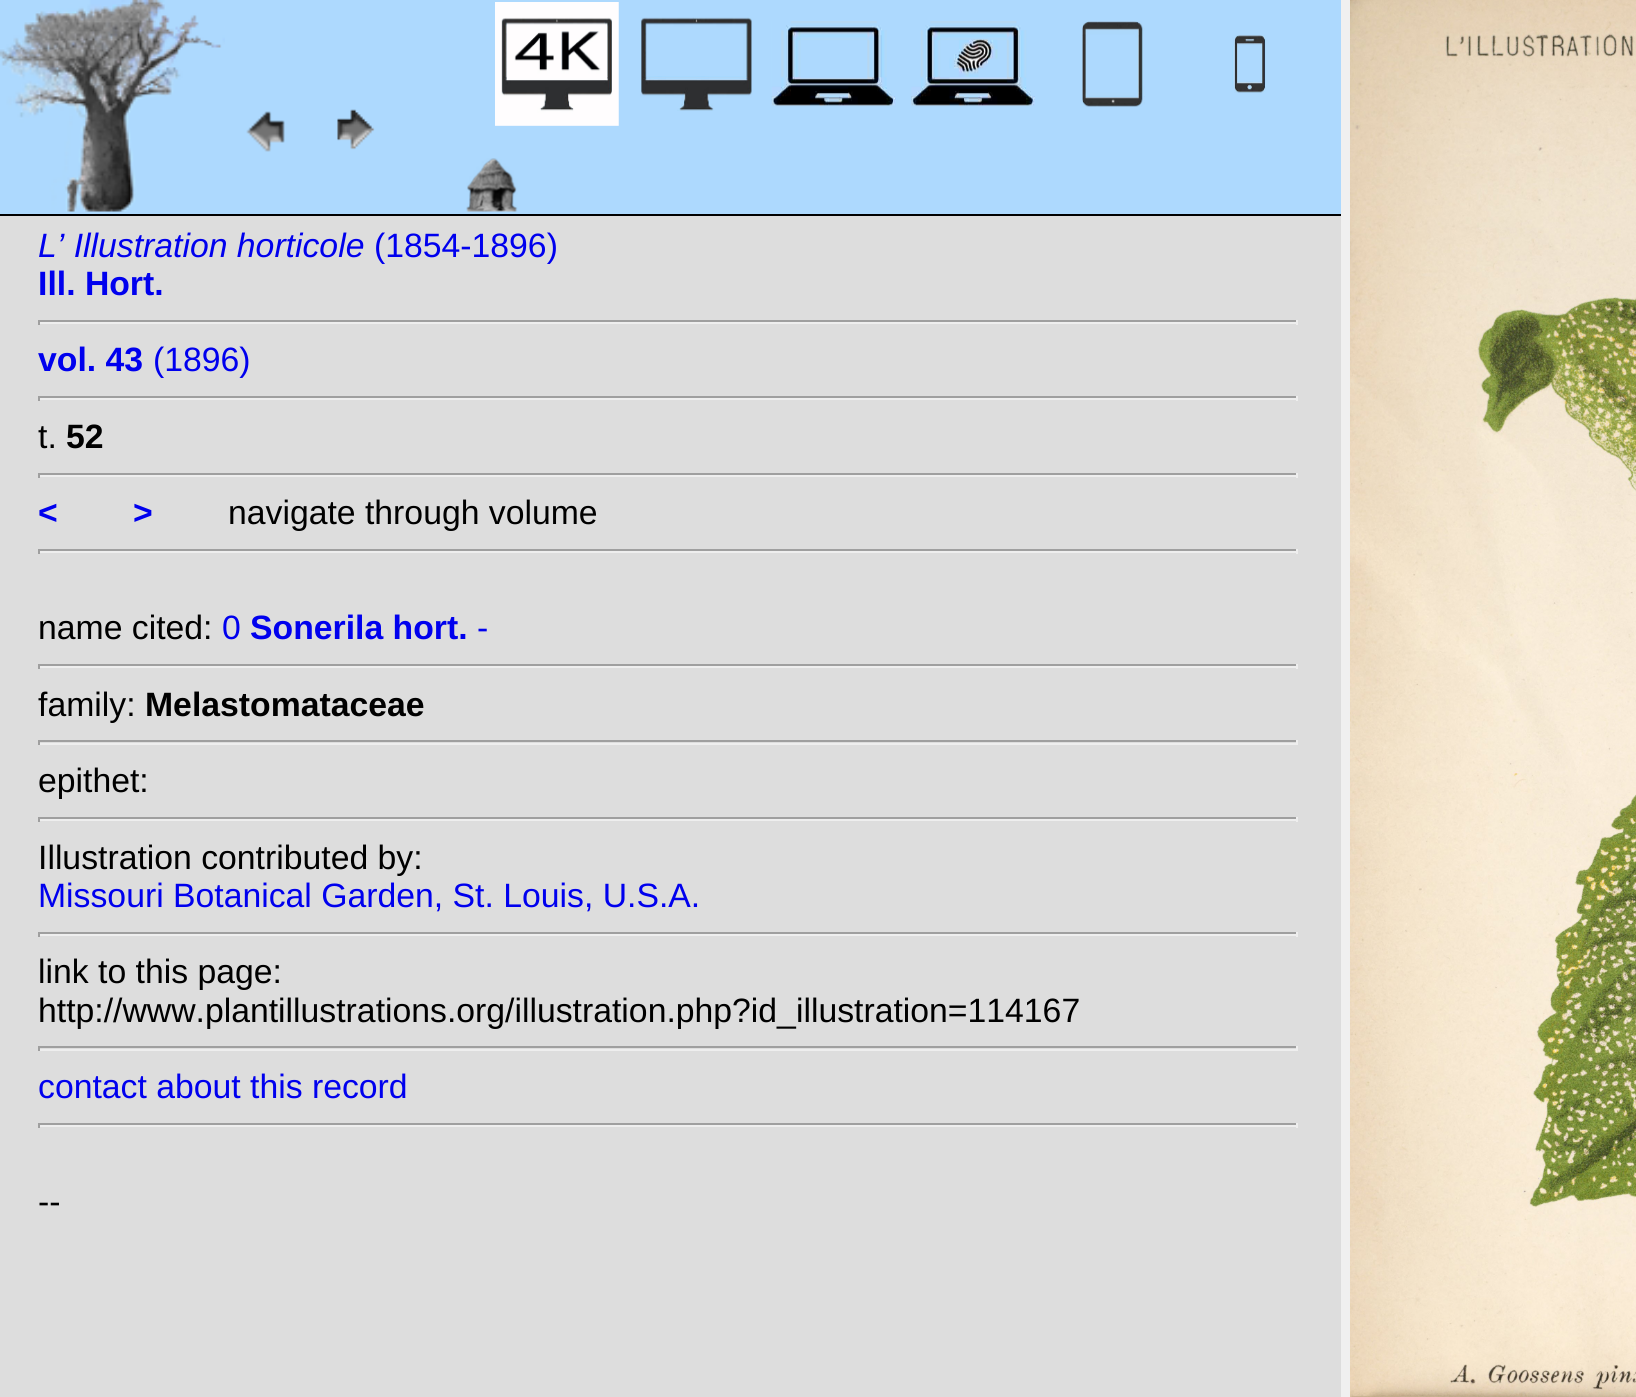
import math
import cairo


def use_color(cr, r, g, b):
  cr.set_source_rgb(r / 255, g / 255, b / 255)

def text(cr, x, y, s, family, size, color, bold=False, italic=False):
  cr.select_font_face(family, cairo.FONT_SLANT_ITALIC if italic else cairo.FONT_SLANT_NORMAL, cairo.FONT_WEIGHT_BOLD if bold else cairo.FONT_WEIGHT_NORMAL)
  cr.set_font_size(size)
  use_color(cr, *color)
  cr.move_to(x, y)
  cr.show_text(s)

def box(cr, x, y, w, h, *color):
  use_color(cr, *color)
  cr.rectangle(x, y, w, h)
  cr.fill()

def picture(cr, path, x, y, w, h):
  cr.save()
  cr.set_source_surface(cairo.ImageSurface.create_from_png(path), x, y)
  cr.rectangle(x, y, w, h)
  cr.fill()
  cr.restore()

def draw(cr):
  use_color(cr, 240, 240, 240)
  cr.paint()
  box(cr, 0, 216, 1341, 1181, 221, 221, 221)
  box(cr, 0, 0, 1341, 214, 173, 217, 254)
  box(cr, 0, 214, 1341, 2, 0, 0, 0)
  picture(cr, "img_01.png", 0, 0, 225, 212)
  picture(cr, "img_02.png", 246, 111, 39, 41)
  picture(cr, "img_03.png", 337, 109, 38, 41)
  picture(cr, "img_04.png", 495, 2, 124, 124)
  picture(cr, "img_05.png", 640, 17, 112, 94)
  picture(cr, "img_06.png", 771, 21, 125, 86)
  picture(cr, "img_07.png", 911, 21, 124, 86)
  picture(cr, "img_08.png", 1082, 21, 63, 86)
  picture(cr, "img_09.png", 1232, 35, 34, 58)
  picture(cr, "img_10.png", 466, 158, 52, 54)
  box(cr, 38, 320, 1260, 2, 159, 159, 159)
  box(cr, 1296, 320, 2, 5, 238, 238, 238)
  box(cr, 38, 322, 1260, 2, 238, 238, 238)
  box(cr, 38, 320, 2, 5, 159, 159, 159)
  box(cr, 38, 396, 1260, 2, 159, 159, 159)
  box(cr, 1296, 396, 2, 5, 238, 238, 238)
  box(cr, 38, 398, 1260, 2, 238, 238, 238)
  box(cr, 38, 396, 2, 5, 159, 159, 159)
  box(cr, 38, 473, 1260, 2, 159, 159, 159)
  box(cr, 1296, 473, 2, 5, 238, 238, 238)
  box(cr, 38, 475, 1260, 2, 238, 238, 238)
  box(cr, 38, 473, 2, 5, 159, 159, 159)
  box(cr, 38, 549, 1260, 2, 159, 159, 159)
  box(cr, 1296, 549, 2, 5, 238, 238, 238)
  box(cr, 38, 551, 1260, 2, 238, 238, 238)
  box(cr, 38, 549, 2, 5, 159, 159, 159)
  box(cr, 38, 664, 1260, 2, 159, 159, 159)
  box(cr, 1296, 664, 2, 5, 238, 238, 238)
  box(cr, 38, 666, 1260, 2, 238, 238, 238)
  box(cr, 38, 664, 2, 5, 159, 159, 159)
  box(cr, 38, 740, 1260, 2, 159, 159, 159)
  box(cr, 1296, 740, 2, 5, 238, 238, 238)
  box(cr, 38, 743, 1260, 2, 238, 238, 238)
  box(cr, 38, 740, 2, 5, 159, 159, 159)
  box(cr, 38, 817, 1260, 2, 159, 159, 159)
  box(cr, 1296, 817, 2, 5, 238, 238, 238)
  box(cr, 38, 819, 1260, 2, 238, 238, 238)
  box(cr, 38, 817, 2, 5, 159, 159, 159)
  box(cr, 38, 932, 1260, 2, 159, 159, 159)
  box(cr, 1296, 932, 2, 5, 238, 238, 238)
  box(cr, 38, 934, 1260, 2, 238, 238, 238)
  box(cr, 38, 932, 2, 5, 159, 159, 159)
  box(cr, 38, 1046, 1260, 2, 159, 159, 159)
  box(cr, 1296, 1046, 2, 5, 238, 238, 238)
  box(cr, 38, 1049, 1260, 2, 238, 238, 238)
  box(cr, 38, 1046, 2, 5, 159, 159, 159)
  box(cr, 38, 1123, 1260, 2, 159, 159, 159)
  box(cr, 1296, 1123, 2, 5, 238, 238, 238)
  box(cr, 38, 1125, 1260, 2, 238, 238, 238)
  box(cr, 38, 1123, 2, 5, 159, 159, 159)
  picture(cr, "img_11.png", 1350, 0, 286, 1397)
  text(cr, 38, 257, "L’ Illustration horticole", "Liberation Sans", 33.75, (0, 0, 238), italic=True)
  text(cr, 374, 257, "(1854-1896)", "Liberation Sans", 33.75, (0, 0, 238))
  text(cr, 38, 295, "Ill. Hort.", "Liberation Sans", 33.75, (0, 0, 238), bold=True)
  text(cr, 38, 371, "vol. 43", "Liberation Sans", 33.75, (0, 0, 238), bold=True)
  text(cr, 153, 371, "(1896)", "Liberation Sans", 33.75, (0, 0, 238))
  text(cr, 38, 448, "t.", "Liberation Sans", 33.75, (0, 0, 0))
  text(cr, 66, 448, "52", "Liberation Sans", 33.75, (0, 0, 0), bold=True)
  text(cr, 38, 524, "<", "Liberation Sans", 33.75, (0, 0, 238), bold=True)
  text(cr, 133, 524, ">", "Liberation Sans", 33.75, (0, 0, 238), bold=True)
  text(cr, 228, 524, "navigate through volume", "Liberation Sans", 33.75, (0, 0, 0))
  text(cr, 38, 639, "name cited:", "Liberation Sans", 33.75, (0, 0, 0))
  text(cr, 222, 639, "0", "Liberation Sans", 33.75, (0, 0, 238))
  text(cr, 250, 639, "Sonerila hort.", "Liberation Sans", 33.75, (0, 0, 238), bold=True)
  text(cr, 477, 639, "-", "Liberation Sans", 33.75, (0, 0, 238))
  text(cr, 38, 716, "family:", "Liberation Sans", 33.75, (0, 0, 0))
  text(cr, 145, 716, "Melastomataceae", "Liberation Sans", 33.75, (0, 0, 0), bold=True)
  text(cr, 38, 792, "epithet:", "Liberation Sans", 33.75, (0, 0, 0))
  text(cr, 38, 869, "Illustration contributed by:", "Liberation Sans", 33.75, (0, 0, 0))
  text(cr, 38, 907, "Missouri Botanical Garden, St. Louis, U.S.A.", "Liberation Sans", 33.75, (0, 0, 238))
  text(cr, 38, 983, "link to this page:", "Liberation Sans", 33.75, (0, 0, 0))
  text(cr, 38, 1022, "http://www.plantillustrations.org/illustration.php?id_illustration=114167", "Liberation Sans", 33.75, (0, 0, 0))
  text(cr, 38, 1098, "contact about this record", "Liberation Sans", 33.75, (0, 0, 238))
  text(cr, 38, 1213, "--", "Liberation Sans", 33.75, (0, 0, 0))


surface = cairo.ImageSurface(cairo.FORMAT_RGB24, 1636, 1397)
cr = cairo.Context(surface)
options = cairo.FontOptions()
options.set_hint_metrics(cairo.HINT_METRICS_OFF)
options.set_hint_style(cairo.HINT_STYLE_NONE)
cr.set_font_options(options)
cr.set_miter_limit(4)
draw(cr)
surface.write_to_png("out.png")
